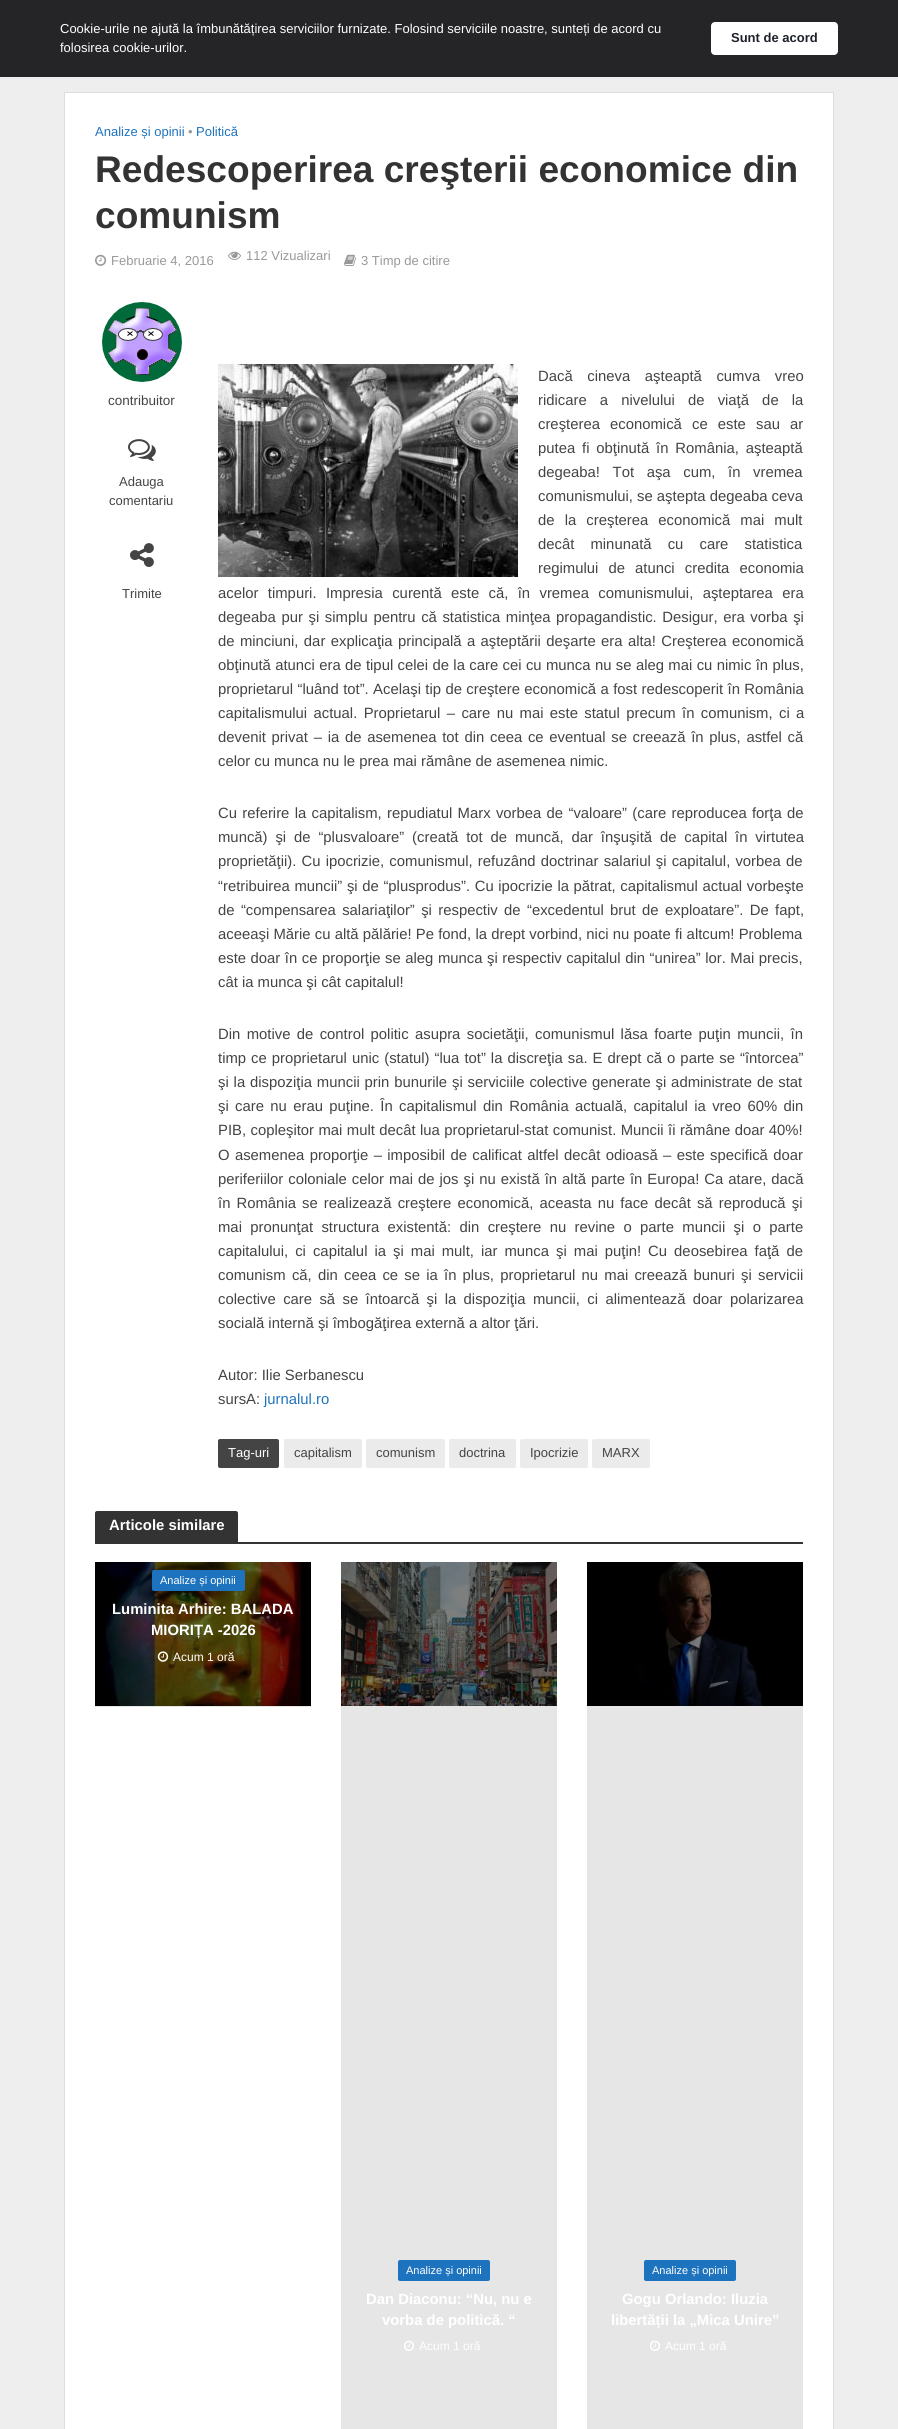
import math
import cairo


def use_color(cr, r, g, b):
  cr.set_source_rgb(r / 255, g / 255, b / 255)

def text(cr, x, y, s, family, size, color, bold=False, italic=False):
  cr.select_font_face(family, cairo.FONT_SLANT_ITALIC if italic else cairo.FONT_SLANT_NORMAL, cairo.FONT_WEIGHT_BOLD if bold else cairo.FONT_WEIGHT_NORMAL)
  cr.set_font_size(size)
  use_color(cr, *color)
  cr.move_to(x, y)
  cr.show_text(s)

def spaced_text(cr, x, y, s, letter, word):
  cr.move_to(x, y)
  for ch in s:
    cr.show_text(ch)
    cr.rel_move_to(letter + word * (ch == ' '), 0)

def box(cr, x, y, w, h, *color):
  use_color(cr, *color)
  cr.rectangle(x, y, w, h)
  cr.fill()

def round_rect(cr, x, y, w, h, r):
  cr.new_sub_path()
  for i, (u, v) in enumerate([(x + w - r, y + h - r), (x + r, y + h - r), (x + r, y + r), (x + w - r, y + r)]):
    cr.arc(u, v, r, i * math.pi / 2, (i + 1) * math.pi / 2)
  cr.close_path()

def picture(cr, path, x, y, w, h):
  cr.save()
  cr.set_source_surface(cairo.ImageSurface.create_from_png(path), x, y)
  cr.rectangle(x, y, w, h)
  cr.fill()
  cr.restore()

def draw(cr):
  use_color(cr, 238, 238, 238)
  cr.paint()
  box(cr, 0, 0, 898, 77, 37, 37, 40)
  use_color(cr, 255, 255, 255)
  round_rect(cr, 711, 22, 127, 33, 4)
  cr.fill()
  cr.rectangle(64.5, 92.5, 769, 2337)
  use_color(cr, 221, 221, 221)
  cr.set_line_width(1)
  cr.stroke()
  box(cr, 65, 93, 768, 2336, 255, 255, 255)
  picture(cr, "img_01.png", 95, 254, 12, 12)
  picture(cr, "img_02.png", 228, 251, 13, 9)
  picture(cr, "img_03.png", 344, 254, 12, 12)
  picture(cr, "img_04.png", 102, 302, 80, 80)
  picture(cr, "img_05.png", 128, 439, 28, 22)
  picture(cr, "img_06.png", 130, 543, 24, 24)
  picture(cr, "img_07.png", 218, 364, 300, 213)
  use_color(cr, 68, 68, 68)
  round_rect(cr, 218, 1439, 61, 29, 2)
  cr.fill()
  use_color(cr, 235, 235, 235)
  round_rect(cr, 284, 1439, 78, 29, 2)
  cr.fill()
  round_rect(cr, 366, 1439, 79, 29, 2)
  cr.fill()
  round_rect(cr, 449, 1439, 67, 29, 2)
  cr.fill()
  round_rect(cr, 520, 1439, 68, 29, 2)
  cr.fill()
  round_rect(cr, 592, 1439, 58, 29, 2)
  cr.fill()
  use_color(cr, 51, 51, 51)
  cr.new_path()
  cr.move_to(97, 1511)
  cr.line_to(236, 1511)
  cr.curve_to(237, 1511, 238, 1512, 238, 1513)
  cr.line_to(238, 1542)
  cr.line_to(95, 1542)
  cr.line_to(95, 1513)
  cr.curve_to(95, 1512, 96, 1511, 97, 1511)
  cr.close_path()
  cr.fill()
  box(cr, 95, 1542, 708, 2, 51, 51, 51)
  box(cr, 95, 1706, 216, 1, 230, 230, 230)
  picture(cr, "img_08.png", 95, 1562, 216, 144)
  use_color(cr, 30, 115, 190)
  round_rect(cr, 152, 1570, 93, 21, 2)
  cr.fill()
  picture(cr, "img_09.png", 157, 1651, 12, 11)
  box(cr, 341, 1706, 216, 723, 230, 230, 230)
  picture(cr, "img_10.png", 341, 1562, 216, 144)
  use_color(cr, 30, 115, 190)
  round_rect(cr, 398, 2260, 92, 21, 2)
  cr.fill()
  picture(cr, "img_11.png", 404, 2340, 10, 11)
  box(cr, 587, 1706, 216, 723, 230, 230, 230)
  picture(cr, "img_12.png", 587, 1562, 216, 144)
  use_color(cr, 30, 115, 190)
  round_rect(cr, 644, 2260, 92, 21, 2)
  cr.fill()
  picture(cr, "img_11.png", 650, 2340, 10, 11)
  text(cr, 60, 33, "Cookie-urile ne ajută la îmbunătățirea serviciilor furnizate. Folosind serviciile noastre, sunteți de acord cu", "Liberation Sans", 13, (255, 255, 255))
  text(cr, 60, 52, "folosirea cookie-urilor.", "Liberation Sans", 13, (255, 255, 255))
  text(cr, 731, 42, "Sunt de acord", "Liberation Sans", 13, (29, 33, 41), bold=True)
  text(cr, 95, 136, "Analize și opinii", "Liberation Sans", 13, (30, 115, 190))
  text(cr, 188, 136, "•", "Liberation Sans", 13, (153, 153, 153))
  text(cr, 196, 136, "Politică", "Liberation Sans", 13, (30, 115, 190))
  text(cr, 95, 182, "Redescoperirea creşterii economice din", "Liberation Sans", 37.1, (51, 51, 51), bold=True)
  text(cr, 95, 228, "comunism", "Liberation Sans", 37.1, (51, 51, 51), bold=True)
  text(cr, 111, 265, "Februarie 4, 2016", "Liberation Sans", 13, (153, 153, 153))
  text(cr, 246, 260, "112 Vizualizari", "Liberation Sans", 13, (153, 153, 153))
  text(cr, 361, 265, "3 Timp de citire", "Liberation Sans", 13, (153, 153, 153))
  text(cr, 108, 405, "contribuitor", "Liberation Sans", 13.5, (68, 68, 68))
  text(cr, 119, 486, "Adauga", "Liberation Sans", 13, (68, 68, 68))
  text(cr, 109, 505, "comentariu", "Liberation Sans", 13, (68, 68, 68))
  text(cr, 122, 598, "Trimite", "Liberation Sans", 13, (68, 68, 68))
  cr.set_font_size(14.85)
  spaced_text(cr, 538, 381, "Dacă cineva aşteaptă cumva vreo", 0, 10.5)
  spaced_text(cr, 538, 405, "ridicare a nivelului de viaţă de la", 0, 9)
  spaced_text(cr, 538, 429, "creşterea economică ce este sau ar", 0, 6)
  spaced_text(cr, 538, 453, "putea fi obţinută în România, aşteaptă", 0, 2.75)
  spaced_text(cr, 538, 477, "degeaba! Tot aşa cum, în vremea", 0, 8.5)
  text(cr, 538, 501, "comunismului, se aştepta degeaba ceva", "Liberation Sans", 14.85, (68, 68, 68))
  spaced_text(cr, 538, 525, "de la creşterea economică mai mult", 0, 6)
  spaced_text(cr, 538, 549, "decât minunată cu care statistica", 0, 12)
  spaced_text(cr, 538, 573, "regimului de atunci credita economia", 0, 6)
  spaced_text(cr, 218, 598, "acelor timpuri. Impresia curentă este că, în vremea comunismului, aşteptarea era", 0, 5.25)
  spaced_text(cr, 218, 622, "degeaba pur şi simplu pentru că statistica minţea propagandistic. Desigur, era vorba şi", 0, 1.5)
  spaced_text(cr, 218, 646, "de minciuni, dar explicaţia principală a aşteptării deşarte era alta! Creşterea economică", 0, 1.25)
  spaced_text(cr, 218, 670, "obţinută atunci era de tipul celei de la care cei cu munca nu se aleg mai cu nimic în plus,", 0, 0.25)
  spaced_text(cr, 218, 694, "proprietarul “luând tot”. Acelaşi tip de creştere economică a fost redescoperit în România", 0, 0.25)
  spaced_text(cr, 218, 718, "capitalismului actual. Proprietarul – care nu mai este statul precum în comunism, ci a", 0, 2.25)
  spaced_text(cr, 218, 742, "devenit privat – ia de asemenea tot din ceea ce eventual se creează în plus, astfel că", 0, 1.6)
  text(cr, 218, 766, "celor cu munca nu le prea mai rămâne de asemenea nimic.", "Liberation Sans", 14.85, (68, 68, 68))
  spaced_text(cr, 218, 818, "Cu referire la capitalism, repudiatul Marx vorbea de “valoare” (care reproducea forţa de", 0, 1.2)
  spaced_text(cr, 218, 842, "muncă) şi de “plusvaloare” (creată tot de muncă, dar înşuşită de capital în virtutea", 0, 3.75)
  spaced_text(cr, 218, 866, "proprietăţii). Cu ipocrizie, comunismul, refuzând doctrinar salariul şi capitalul, vorbea de", 0, 1)
  spaced_text(cr, 218, 891, "“retribuirea muncii” şi de “plusprodus”. Cu ipocrizie la pătrat, capitalismul actual vorbeşte", 0, 0.5)
  spaced_text(cr, 218, 915, "de “compensarea salariaţilor” şi respectiv de “excedentul brut de exploatare”. De fapt,", 0, 2.25)
  spaced_text(cr, 218, 939, "aceeaşi Mărie cu altă pălărie! Pe fond, la drept vorbind, nici nu poate fi altcum! Problema", 0, 0.1)
  spaced_text(cr, 218, 963, "este doar în ce proporţie se aleg munca şi respectiv capitalul din “unirea” lor. Mai precis,", 0, 0.4)
  text(cr, 218, 987, "cât ia munca şi cât capitalul!", "Liberation Sans", 14.85, (68, 68, 68))
  spaced_text(cr, 218, 1039, "Din motive de control politic asupra societăţii, comunismul lăsa foarte puţin muncii, în", 0, 2.25)
  spaced_text(cr, 218, 1063, "timp ce proprietarul unic (statul) “lua tot” la discreţia sa. E drept că o parte se “întorcea”", 0, 0.9)
  spaced_text(cr, 218, 1087, "şi la dispoziţia muncii prin bunurile şi serviciile colective generate şi administrate de stat", 0, 0.75)
  spaced_text(cr, 218, 1111, "şi care nu erau puţine. În capitalismul din România actuală, capitalul ia vreo 60% din", 0, 2.25)
  spaced_text(cr, 218, 1135, "PIB, copleşitor mai mult decât lua proprietarul-stat comunist. Muncii îi rămâne doar 40%!", 0, 0.3)
  spaced_text(cr, 218, 1160, "O asemenea proporţie – imposibil de calificat altfel decât odioasă – este specifică doar", 0, 1.25)
  spaced_text(cr, 218, 1184, "periferiilor coloniale celor mai de jos şi nu există în altă parte în Europa! Ca atare, dacă", 0, 0.9)
  spaced_text(cr, 218, 1208, "în România se realizează creştere economică, aceasta nu face decât să reproducă şi", 0, 2)
  spaced_text(cr, 218, 1232, "mai pronunţat structura existentă: din creştere nu revine o parte muncii şi o parte", 0, 4.25)
  spaced_text(cr, 218, 1256, "capitalului, ci capitalul ia şi mai mult, iar munca şi mai puţin! Cu deosebirea faţă de", 0, 2.9)
  spaced_text(cr, 218, 1280, "comunism că, din ceea ce se ia în plus, proprietarul nu mai creează bunuri şi servicii", 0, 2.1)
  spaced_text(cr, 218, 1304, "colective care să se întoarcă şi la dispoziţia muncii, ci alimentează doar polarizarea", 0, 3.25)
  text(cr, 218, 1328, "socială internă şi îmbogăţirea externă a altor ţări.", "Liberation Sans", 14.85, (68, 68, 68))
  text(cr, 218, 1380, "Autor: Ilie Serbanescu", "Liberation Sans", 14.85, (68, 68, 68))
  text(cr, 218, 1404, "sursA:", "Liberation Sans", 14.85, (68, 68, 68))
  text(cr, 264, 1404, "jurnalul.ro", "Liberation Sans", 14.85, (30, 115, 190))
  text(cr, 228, 1457, "Tag-uri", "Liberation Sans", 13, (255, 255, 255))
  text(cr, 294, 1457, "capitalism", "Liberation Sans", 13, (68, 68, 68))
  text(cr, 376, 1457, "comunism", "Liberation Sans", 13, (68, 68, 68))
  text(cr, 459, 1457, "doctrina", "Liberation Sans", 13, (68, 68, 68))
  text(cr, 530, 1457, "Ipocrizie", "Liberation Sans", 13, (68, 68, 68))
  text(cr, 602, 1457, "MARX", "Liberation Sans", 13, (68, 68, 68))
  text(cr, 109, 1530, "Articole similare", "Liberation Sans", 14.85, (255, 255, 255), bold=True)
  text(cr, 160, 1584, "Analize și opinii", "Liberation Sans", 11, (255, 255, 255))
  text(cr, 112, 1614, "Luminita Arhire: BALADA", "Liberation Sans", 14.85, (255, 255, 255), bold=True)
  text(cr, 151, 1635, "MIORIȚA -2026", "Liberation Sans", 14.85, (255, 255, 255), bold=True)
  text(cr, 173, 1661, "Acum 1 oră", "Liberation Sans", 12, (255, 255, 255))
  text(cr, 406, 2274, "Analize și opinii", "Liberation Sans", 11, (255, 255, 255))
  text(cr, 366, 2304, "Dan Diaconu: “Nu, nu e", "Liberation Sans", 14.85, (255, 255, 255), bold=True)
  text(cr, 382, 2325, "vorba de politică. “", "Liberation Sans", 14.85, (255, 255, 255), bold=True)
  text(cr, 419, 2350, "Acum 1 oră", "Liberation Sans", 12, (255, 255, 255))
  text(cr, 652, 2274, "Analize și opinii", "Liberation Sans", 11, (255, 255, 255))
  text(cr, 622, 2304, "Gogu Orlando: Iluzia", "Liberation Sans", 14.85, (255, 255, 255), bold=True)
  text(cr, 611, 2325, "libertății la „Mica Unire”", "Liberation Sans", 14.85, (255, 255, 255), bold=True)
  text(cr, 665, 2350, "Acum 1 oră", "Liberation Sans", 12, (255, 255, 255))


surface = cairo.ImageSurface(cairo.FORMAT_RGB24, 898, 2429)
cr = cairo.Context(surface)
options = cairo.FontOptions()
options.set_hint_metrics(cairo.HINT_METRICS_OFF)
options.set_hint_style(cairo.HINT_STYLE_NONE)
cr.set_font_options(options)
cr.set_miter_limit(4)
draw(cr)
surface.write_to_png("out.png")
